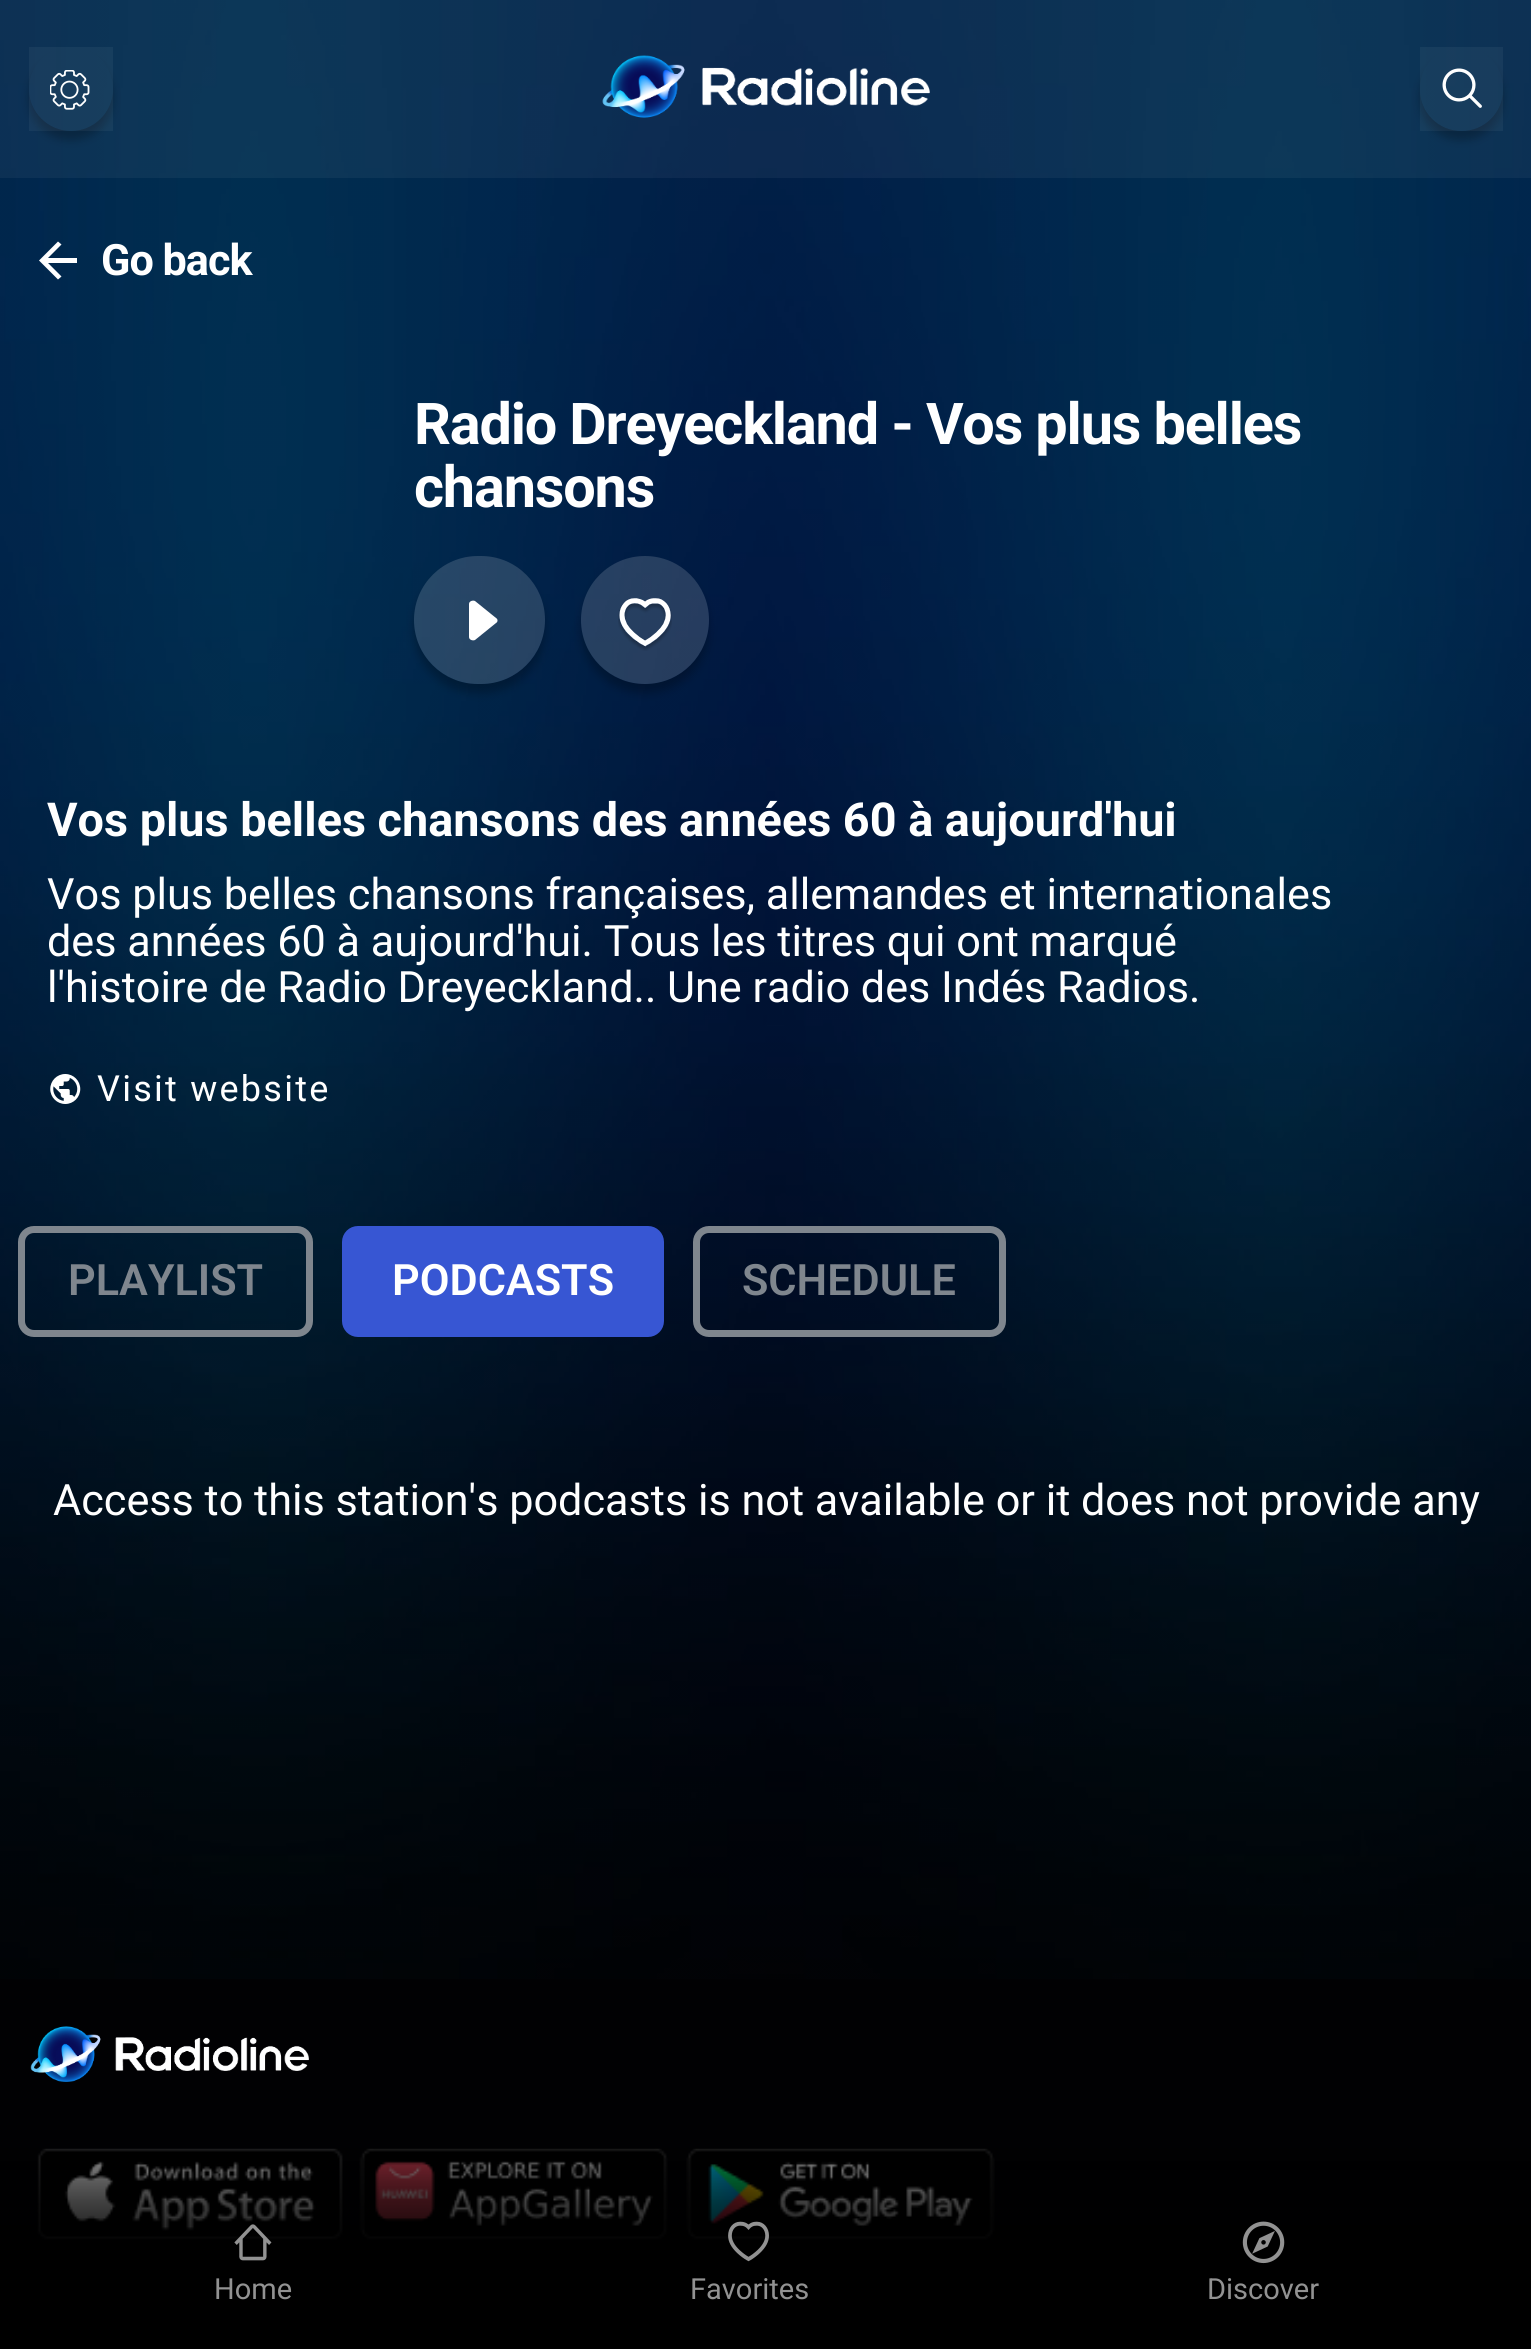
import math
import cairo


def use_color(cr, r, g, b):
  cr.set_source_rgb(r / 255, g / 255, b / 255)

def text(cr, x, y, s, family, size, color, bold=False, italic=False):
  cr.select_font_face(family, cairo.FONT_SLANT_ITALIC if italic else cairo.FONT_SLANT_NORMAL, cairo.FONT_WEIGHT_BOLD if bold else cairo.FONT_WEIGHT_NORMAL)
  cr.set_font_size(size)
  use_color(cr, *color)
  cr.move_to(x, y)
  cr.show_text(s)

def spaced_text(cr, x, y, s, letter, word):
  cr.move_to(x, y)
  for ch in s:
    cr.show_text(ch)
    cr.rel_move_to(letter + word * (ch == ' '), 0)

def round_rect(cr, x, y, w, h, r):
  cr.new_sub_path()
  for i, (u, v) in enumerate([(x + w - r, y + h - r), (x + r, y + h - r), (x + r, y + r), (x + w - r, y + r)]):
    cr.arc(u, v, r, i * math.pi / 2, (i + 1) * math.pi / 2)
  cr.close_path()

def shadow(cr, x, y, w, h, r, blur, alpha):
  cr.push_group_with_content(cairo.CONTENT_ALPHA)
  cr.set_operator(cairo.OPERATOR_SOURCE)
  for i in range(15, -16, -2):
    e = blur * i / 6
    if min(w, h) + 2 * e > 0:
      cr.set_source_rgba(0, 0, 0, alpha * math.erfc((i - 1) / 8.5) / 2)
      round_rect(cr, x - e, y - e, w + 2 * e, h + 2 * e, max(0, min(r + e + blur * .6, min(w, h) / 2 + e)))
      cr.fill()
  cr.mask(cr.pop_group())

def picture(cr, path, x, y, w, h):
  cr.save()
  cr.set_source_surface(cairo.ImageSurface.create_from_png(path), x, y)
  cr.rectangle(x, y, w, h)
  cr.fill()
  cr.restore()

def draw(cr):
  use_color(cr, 1, 1, 3)
  cr.paint()
  picture(cr, "img_01.png", 0, 0, 1531, 1979)
  cr.set_source_rgba(1, 1, 1, 0.05)
  cr.rectangle(0, 0, 1531, 178)
  cr.fill()
  cr.save()
  cr.set_fill_rule(cairo.FILL_RULE_EVEN_ODD)
  cr.new_path()
  cr.move_to(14, 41)
  cr.line_to(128, 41)
  cr.line_to(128, 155)
  cr.line_to(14, 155)
  cr.close_path()
  cr.move_to(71, 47)
  cr.curve_to(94, 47, 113, 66, 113, 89)
  cr.curve_to(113, 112, 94, 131, 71, 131)
  cr.curve_to(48, 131, 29, 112, 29, 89)
  cr.curve_to(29, 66, 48, 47, 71, 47)
  cr.close_path()
  cr.clip()
  use_color(cr, 0, 0, 0)
  shadow(cr, 29, 56, 84, 84, 42, 4.5, 0.25)
  cr.restore()
  cr.rectangle(29, 47, 84, 84)
  cr.fill()
  picture(cr, "img_02.png", 50, 70, 40, 40)
  picture(cr, "img_03.png", 602, 55, 328, 63)
  cr.save()
  cr.set_fill_rule(cairo.FILL_RULE_EVEN_ODD)
  cr.new_path()
  cr.move_to(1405, 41)
  cr.line_to(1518, 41)
  cr.line_to(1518, 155)
  cr.line_to(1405, 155)
  cr.close_path()
  cr.move_to(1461.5, 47)
  cr.curve_to(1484.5, 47, 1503, 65.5, 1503, 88.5)
  cr.line_to(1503, 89.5)
  cr.curve_to(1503, 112.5, 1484.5, 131, 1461.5, 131)
  cr.curve_to(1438.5, 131, 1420, 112.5, 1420, 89.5)
  cr.line_to(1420, 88.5)
  cr.curve_to(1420, 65.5, 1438.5, 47, 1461.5, 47)
  cr.close_path()
  cr.clip()
  use_color(cr, 0, 0, 0)
  shadow(cr, 1420, 56, 83, 84, 41.5, 4.5, 0.25)
  cr.restore()
  cr.rectangle(1420, 47, 83, 84)
  cr.fill()
  picture(cr, "img_04.png", 1442, 68, 40, 40)
  use_color(cr, 255, 255, 255)
  cr.new_path()
  cr.move_to(77, 258)
  cr.line_to(48, 258)
  cr.line_to(61.5, 244.5)
  cr.line_to(58, 241.5)
  cr.line_to(39, 260.5)
  cr.line_to(58, 279.5)
  cr.line_to(61.5, 276.5)
  cr.line_to(48, 263)
  cr.line_to(77, 263)
  cr.close_path()
  cr.fill()
  cr.save()
  cr.set_fill_rule(cairo.FILL_RULE_EVEN_ODD)
  cr.new_path()
  cr.move_to(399, 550)
  cr.line_to(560, 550)
  cr.line_to(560, 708)
  cr.line_to(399, 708)
  cr.close_path()
  cr.move_to(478, 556)
  cr.line_to(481, 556)
  cr.curve_to(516.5, 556, 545, 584.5, 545, 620)
  cr.curve_to(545, 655.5, 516.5, 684, 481, 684)
  cr.line_to(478, 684)
  cr.curve_to(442.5, 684, 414, 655.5, 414, 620)
  cr.curve_to(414, 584.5, 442.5, 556, 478, 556)
  cr.close_path()
  cr.clip()
  use_color(cr, 0, 0, 0)
  shadow(cr, 414, 565, 131, 128, 64, 4.5, 0.25)
  cr.restore()
  cr.set_source_rgba(1, 1, 1, 0.15)
  round_rect(cr, 414, 556, 131, 128, 64)
  cr.fill()
  use_color(cr, 255, 255, 255)
  cr.new_path()
  cr.move_to(496, 618)
  cr.line_to(475, 601)
  cr.curve_to(473, 600, 469, 601, 469, 604)
  cr.line_to(469, 637)
  cr.curve_to(469, 640, 473, 641, 475, 640)
  cr.line_to(496, 623)
  cr.curve_to(498, 622, 498, 619, 496, 618)
  cr.close_path()
  cr.fill()
  cr.save()
  cr.set_fill_rule(cairo.FILL_RULE_EVEN_ODD)
  cr.new_path()
  cr.move_to(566, 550)
  cr.line_to(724, 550)
  cr.line_to(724, 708)
  cr.line_to(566, 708)
  cr.close_path()
  cr.move_to(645, 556)
  cr.curve_to(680.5, 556, 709, 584.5, 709, 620)
  cr.curve_to(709, 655.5, 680.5, 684, 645, 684)
  cr.curve_to(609.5, 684, 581, 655.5, 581, 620)
  cr.curve_to(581, 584.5, 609.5, 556, 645, 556)
  cr.close_path()
  cr.clip()
  use_color(cr, 0, 0, 0)
  shadow(cr, 581, 565, 128, 128, 64, 4.5, 0.25)
  cr.restore()
  cr.set_source_rgba(1, 1, 1, 0.15)
  cr.arc(645, 620, 64, 0, 2 * math.pi)
  cr.fill()
  picture(cr, "img_05.png", 618, 598, 54, 53)
  picture(cr, "img_06.png", 50, 1074, 31, 30)
  round_rect(cr, 21.5, 1229.5, 288, 104, 12.5)
  use_color(cr, 127, 134, 142)
  cr.set_line_width(7)
  cr.stroke()
  use_color(cr, 55, 86, 211)
  round_rect(cr, 345.5, 1229.5, 315, 104, 12.5)
  cr.fill_preserve()
  cr.stroke()
  round_rect(cr, 696.5, 1229.5, 306, 104, 12.5)
  use_color(cr, 127, 134, 142)
  cr.stroke()
  picture(cr, "img_07.png", 30, 2026, 279, 56)
  picture(cr, "img_08.png", 37, 2148, 306, 92)
  picture(cr, "img_09.png", 359, 2148, 309, 92)
  picture(cr, "img_10.png", 686, 2148, 309, 92)
  gradient = cairo.LinearGradient(766, 2097, 766, 2349)
  gradient.add_color_stop_rgba(0, 0, 0, 0, 0)
  gradient.add_color_stop_rgba(0.03, 0, 0, 0, 0.01)
  gradient.add_color_stop_rgba(0.06, 0, 0, 0, 0.05)
  gradient.add_color_stop_rgba(0.09, 0, 0, 0, 0.11)
  gradient.add_color_stop_rgba(0.12, 0, 0, 0, 0.18)
  gradient.add_color_stop_rgba(0.15, 0, 0, 0, 0.26)
  gradient.add_color_stop_rgba(0.19, 0, 0, 0, 0.35)
  gradient.add_color_stop_rgba(0.23, 0, 0, 0, 0.45)
  gradient.add_color_stop_rgba(0.28, 0, 0, 0, 0.55)
  gradient.add_color_stop_rgba(0.34, 0, 0, 0, 0.65)
  gradient.add_color_stop_rgba(0.41, 0, 0, 0, 0.74)
  gradient.add_color_stop_rgba(0.49, 0, 0, 0, 0.82)
  gradient.add_color_stop_rgba(0.59, 0, 0, 0, 0.89)
  gradient.add_color_stop_rgba(0.71, 0, 0, 0, 0.95)
  gradient.add_color_stop_rgba(0.84, 0, 0, 0, 0.99)
  gradient.add_color_stop_rgba(1, 0, 0, 0, 1)
  cr.set_source(gradient)
  cr.rectangle(0, 2148, 1531, 201)
  cr.fill()
  picture(cr, "img_11.png", 234, 2224, 38, 37)
  picture(cr, "img_12.png", 728, 2221, 41, 41)
  picture(cr, "img_13.png", 1242, 2221, 43, 43)
  cr.select_font_face("Roboto", cairo.FONT_SLANT_NORMAL, cairo.FONT_WEIGHT_BOLD)
  cr.set_font_size(43.2)
  use_color(cr, 255, 255, 255)
  spaced_text(cr, 101, 275, "Go back", -1, 0)
  cr.set_font_size(57.6)
  spaced_text(cr, 414, 444, "Radio Dreyeckland - Vos plus belles", -1.15, 0)
  spaced_text(cr, 414, 507, "chansons", -1.15, 0)
  text(cr, 47, 836, "Vos plus belles chansons des années 60 à aujourd'hui", "Roboto", 46.8, (255, 255, 255), bold=True)
  text(cr, 47, 909, "Vos plus belles chansons françaises, allemandes et internationales", "Roboto", 43.2, (255, 255, 255))
  text(cr, 47, 956, "des années 60 à aujourd'hui. Tous les titres qui ont marqué", "Roboto", 43.2, (255, 255, 255))
  text(cr, 47, 1002, "l'histoire de Radio Dreyeckland.. Une radio des Indés Radios.", "Roboto", 43.2, (255, 255, 255))
  cr.set_font_size(36)
  spaced_text(cr, 97, 1101, "Visit website", 2.25, 0)
  text(cr, 68, 1295, "PLAYLIST", "Roboto SemiBold", 43.2, (127, 134, 142))
  text(cr, 392, 1295, "PODCASTS", "Roboto SemiBold", 43.2, (255, 255, 255))
  text(cr, 742, 1295, "SCHEDULE", "Roboto SemiBold", 43.2, (127, 134, 142))
  text(cr, 53, 1515, "Access to this station's podcasts is not available or it does not provide any", "Roboto", 43.2, (255, 255, 255))
  text(cr, 214, 2299, "Home", "Roboto", 29, (146, 146, 146))
  text(cr, 690, 2299, "Favorites", "Roboto", 29, (146, 146, 146))
  text(cr, 1207, 2299, "Discover", "Roboto", 29, (146, 146, 146))


surface = cairo.ImageSurface(cairo.FORMAT_RGB24, 1531, 2349)
cr = cairo.Context(surface)
options = cairo.FontOptions()
options.set_hint_metrics(cairo.HINT_METRICS_OFF)
options.set_hint_style(cairo.HINT_STYLE_NONE)
cr.set_font_options(options)
cr.set_miter_limit(4)
draw(cr)
surface.write_to_png("out.png")
